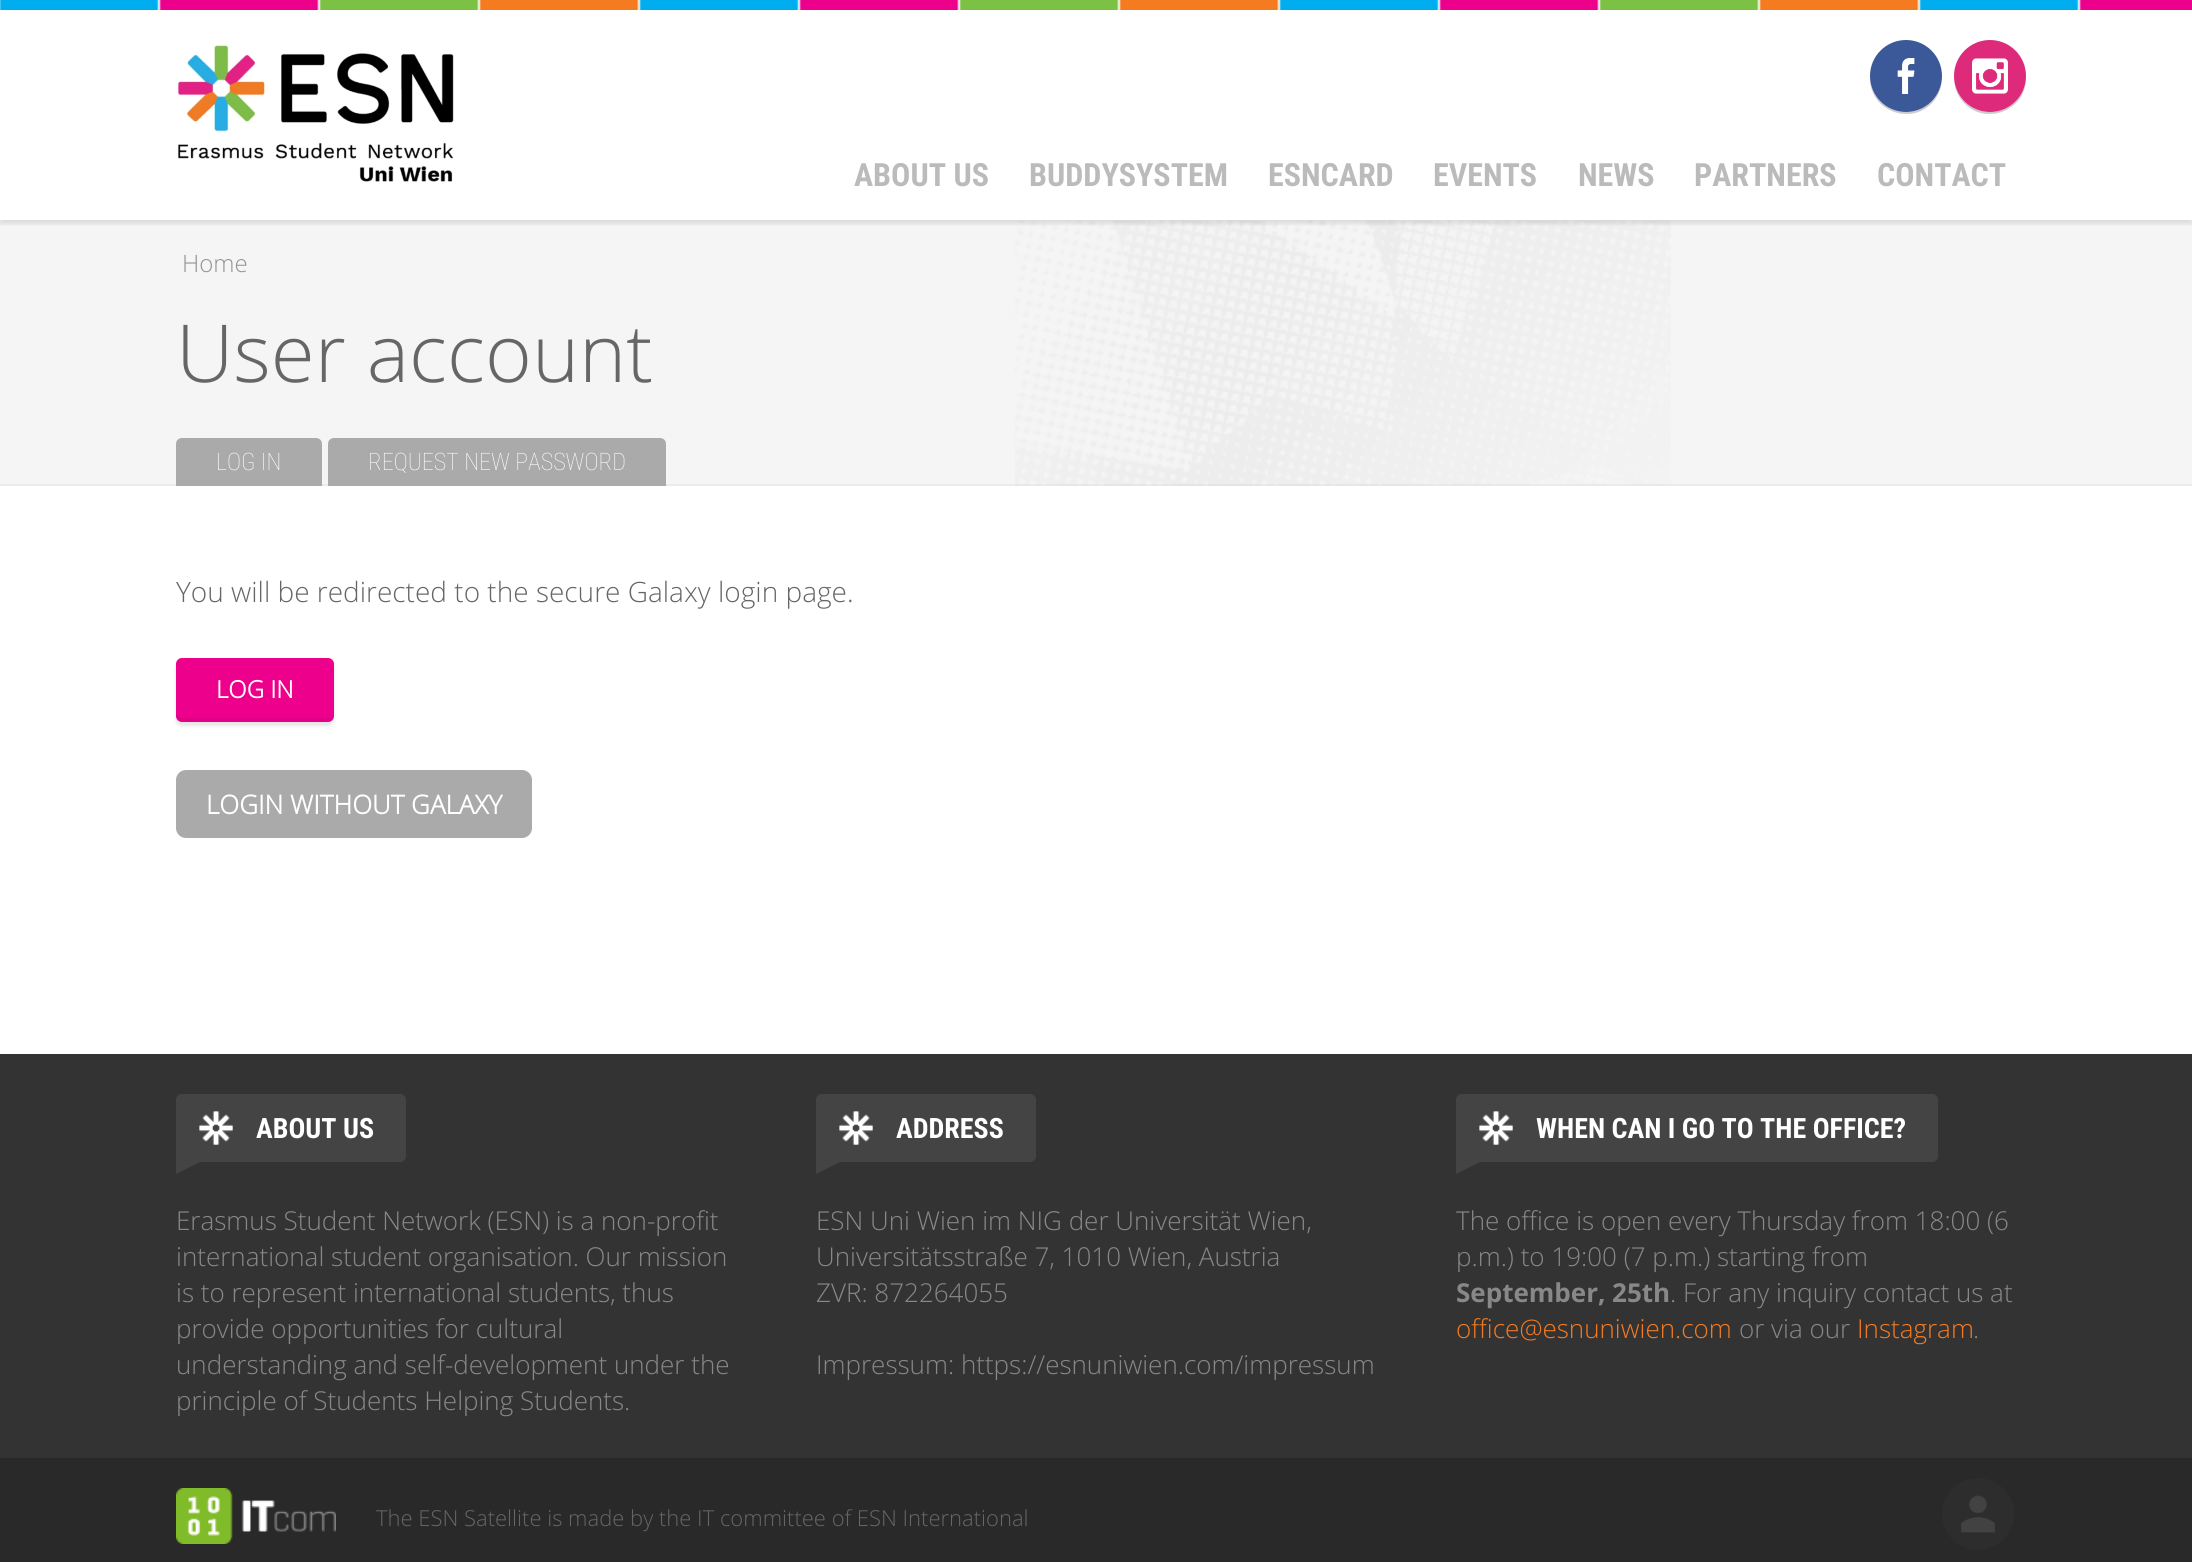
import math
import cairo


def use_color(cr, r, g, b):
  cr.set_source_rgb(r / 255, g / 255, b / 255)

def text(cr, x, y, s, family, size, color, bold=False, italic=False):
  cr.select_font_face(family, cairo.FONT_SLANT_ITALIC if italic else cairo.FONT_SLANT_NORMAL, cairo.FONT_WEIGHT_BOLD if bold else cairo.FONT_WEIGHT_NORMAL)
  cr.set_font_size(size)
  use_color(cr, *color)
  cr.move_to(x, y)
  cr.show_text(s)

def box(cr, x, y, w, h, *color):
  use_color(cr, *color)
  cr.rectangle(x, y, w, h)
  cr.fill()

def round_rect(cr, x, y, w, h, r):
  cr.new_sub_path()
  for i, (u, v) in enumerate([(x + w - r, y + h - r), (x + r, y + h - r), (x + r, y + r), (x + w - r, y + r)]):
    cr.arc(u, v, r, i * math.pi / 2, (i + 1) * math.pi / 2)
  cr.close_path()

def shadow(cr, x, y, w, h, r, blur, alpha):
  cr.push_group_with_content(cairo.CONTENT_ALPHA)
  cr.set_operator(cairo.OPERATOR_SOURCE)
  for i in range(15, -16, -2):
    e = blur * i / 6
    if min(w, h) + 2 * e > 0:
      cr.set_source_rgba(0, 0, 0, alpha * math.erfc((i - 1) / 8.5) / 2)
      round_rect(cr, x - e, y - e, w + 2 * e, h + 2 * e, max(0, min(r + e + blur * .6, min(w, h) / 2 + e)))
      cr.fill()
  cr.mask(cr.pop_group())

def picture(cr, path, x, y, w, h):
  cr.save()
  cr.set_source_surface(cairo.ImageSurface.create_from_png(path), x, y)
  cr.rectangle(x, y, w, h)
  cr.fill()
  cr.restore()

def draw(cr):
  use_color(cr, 255, 255, 255)
  cr.paint()
  box(cr, 0, 220, 2192, 266, 245, 245, 245)
  picture(cr, "img_05.png", 1015, 220, 656, 266)
  cr.save()
  cr.rectangle(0, 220, 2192, 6)
  cr.clip()
  use_color(cr, 0, 0, 0)
  shadow(cr, 0, 4, 2192, 220, 0, 2, 0.1)
  cr.restore()
  picture(cr, "img_01.png", 0, 0, 2192, 10)
  picture(cr, "img_02.png", 177, 44, 277, 138)
  use_color(cr, 204, 204, 204)
  cr.new_path()
  cr.move_to(1870, 77)
  cr.curve_to(1869, 113, 1916, 128, 1936, 98)
  cr.curve_to(1940, 92, 1942, 84, 1942, 77)
  cr.curve_to(1941, 96, 1926, 112, 1906, 112)
  cr.curve_to(1886, 112, 1871, 96, 1870, 77)
  cr.close_path()
  cr.fill()
  use_color(cr, 59, 89, 152)
  cr.arc(1906, 76, 36, 0, 2 * math.pi)
  cr.fill()
  picture(cr, "img_03.png", 1897, 58, 18, 36)
  use_color(cr, 204, 204, 204)
  cr.new_path()
  cr.move_to(1954, 77)
  cr.curve_to(1954, 84, 1956, 92, 1960, 98)
  cr.curve_to(1980, 128, 2027, 113, 2026, 77)
  cr.curve_to(2025, 96, 2010, 112, 1990, 112)
  cr.curve_to(1970, 112, 1955, 96, 1954, 77)
  cr.close_path()
  cr.fill()
  use_color(cr, 221, 42, 123)
  cr.arc(1990, 76, 36, 0, 2 * math.pi)
  cr.fill()
  picture(cr, "img_04.png", 1972, 58, 36, 36)
  cr.set_source_rgba(0, 0, 0, 0.04)
  cr.rectangle(0, 484, 2192, 2)
  cr.fill()
  use_color(cr, 170, 170, 170)
  cr.new_path()
  cr.move_to(182, 438)
  cr.line_to(316, 438)
  cr.curve_to(319.5, 438, 322, 440.5, 322, 444)
  cr.line_to(322, 486)
  cr.line_to(176, 486)
  cr.line_to(176, 444)
  cr.curve_to(176, 440.5, 178.5, 438, 182, 438)
  cr.close_path()
  cr.fill()
  cr.new_path()
  cr.move_to(334, 438)
  cr.line_to(660, 438)
  cr.curve_to(663.5, 438, 666, 440.5, 666, 444)
  cr.line_to(666, 486)
  cr.line_to(328, 486)
  cr.line_to(328, 444)
  cr.curve_to(328, 440.5, 330.5, 438, 334, 438)
  cr.close_path()
  cr.fill()
  use_color(cr, 0, 0, 0)
  shadow(cr, 176, 662, 158, 64, 6, 2, 0.1)
  use_color(cr, 237, 0, 140)
  round_rect(cr, 176, 658, 158, 64, 6)
  cr.fill()
  cr.set_source_rgba(0, 0, 0, 0.05)
  cr.new_path()
  cr.move_to(176, 712)
  cr.line_to(176, 716)
  cr.curve_to(176, 719, 179, 722, 182, 722)
  cr.line_to(328, 722)
  cr.curve_to(331, 722, 334, 719, 334, 716)
  cr.line_to(334, 712)
  cr.curve_to(334, 715, 331, 718, 328, 718)
  cr.line_to(182, 718)
  cr.curve_to(179, 718, 176, 715, 176, 712)
  cr.close_path()
  cr.fill()
  use_color(cr, 170, 170, 170)
  round_rect(cr, 176, 770, 356, 68, 10)
  cr.fill()
  box(cr, 0, 1054, 2192, 404, 51, 51, 51)
  use_color(cr, 68, 68, 68)
  cr.new_path()
  cr.move_to(182, 1094)
  cr.line_to(400, 1094)
  cr.curve_to(403.5, 1094, 406, 1096.5, 406, 1100)
  cr.line_to(406, 1156)
  cr.curve_to(406, 1159.5, 403.5, 1162, 400, 1162)
  cr.line_to(176, 1162)
  cr.line_to(176, 1100)
  cr.curve_to(176, 1096.5, 178.5, 1094, 182, 1094)
  cr.close_path()
  cr.fill()
  picture(cr, "img_06.png", 199, 1111, 34, 34)
  cr.new_path()
  cr.move_to(176, 1162)
  cr.line_to(200, 1162)
  cr.line_to(176, 1174)
  cr.close_path()
  cr.fill()
  cr.new_path()
  cr.move_to(822, 1094)
  cr.line_to(1030, 1094)
  cr.curve_to(1033.5, 1094, 1036, 1096.5, 1036, 1100)
  cr.line_to(1036, 1156)
  cr.curve_to(1036, 1159.5, 1033.5, 1162, 1030, 1162)
  cr.line_to(816, 1162)
  cr.line_to(816, 1100)
  cr.curve_to(816, 1096.5, 818.5, 1094, 822, 1094)
  cr.close_path()
  cr.fill()
  picture(cr, "img_07.png", 839, 1111, 34, 34)
  cr.new_path()
  cr.move_to(816, 1162)
  cr.line_to(840, 1162)
  cr.line_to(816, 1174)
  cr.close_path()
  cr.fill()
  cr.new_path()
  cr.move_to(1462, 1094)
  cr.line_to(1932, 1094)
  cr.curve_to(1935.5, 1094, 1938, 1096.5, 1938, 1100)
  cr.line_to(1938, 1156)
  cr.curve_to(1938, 1159.5, 1935.5, 1162, 1932, 1162)
  cr.line_to(1456, 1162)
  cr.line_to(1456, 1100)
  cr.curve_to(1456, 1096.5, 1458.5, 1094, 1462, 1094)
  cr.close_path()
  cr.fill()
  picture(cr, "img_06.png", 1479, 1111, 34, 34)
  cr.new_path()
  cr.move_to(1456, 1162)
  cr.line_to(1480, 1162)
  cr.line_to(1456, 1174)
  cr.close_path()
  cr.fill()
  box(cr, 0, 1458, 2192, 104, 41, 41, 41)
  picture(cr, "img_08.png", 176, 1488, 160, 56)
  use_color(cr, 45, 45, 45)
  cr.arc(1978, 1514, 36, 0, 2 * math.pi)
  cr.fill()
  picture(cr, "img_09.png", 1961, 1495, 34, 38)
  text(cr, 854, 186, "ABOUT US", "Roboto Condensed", 32, (187, 187, 187), bold=True)
  text(cr, 1029, 186, "BUDDYSYSTEM", "Roboto Condensed", 32, (187, 187, 187), bold=True)
  text(cr, 1268, 186, "ESNCARD", "Roboto Condensed", 32, (187, 187, 187), bold=True)
  text(cr, 1433, 186, "EVENTS", "Roboto Condensed", 32, (187, 187, 187), bold=True)
  text(cr, 1578, 186, "NEWS", "Roboto Condensed", 32, (187, 187, 187), bold=True)
  text(cr, 1694, 186, "PARTNERS", "Roboto Condensed", 32, (187, 187, 187), bold=True)
  text(cr, 1877, 186, "CONTACT", "Roboto Condensed", 32, (187, 187, 187), bold=True)
  text(cr, 182, 272, "Home", "Open Sans Light", 24, (147, 147, 147))
  text(cr, 176, 382, "User account", "Open Sans Light", 80, (102, 102, 102))
  text(cr, 216, 470, "LOG IN", "Roboto Condensed Thin", 24, (255, 255, 255))
  text(cr, 368, 470, "REQUEST NEW PASSWORD", "Roboto Condensed Thin", 24, (255, 255, 255))
  text(cr, 176, 602, "You will be redirected to the secure Galaxy login page.", "Open Sans Light", 28, (102, 102, 102))
  text(cr, 216, 698, "LOG IN", "Open Sans", 24, (255, 255, 255), bold=True)
  text(cr, 206, 814, "LOGIN WITHOUT GALAXY", "Open Sans", 26, (255, 255, 255), bold=True)
  text(cr, 256, 1138, "ABOUT US", "Roboto Condensed", 28, (255, 255, 255), bold=True)
  text(cr, 176, 1230, "Erasmus Student Network (ESN) is a non-profit", "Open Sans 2 Light", 26, (136, 136, 136))
  text(cr, 176, 1266, "international student organisation. Our mission", "Open Sans 2 Light", 26, (136, 136, 136))
  text(cr, 176, 1302, "is to represent international students, thus", "Open Sans 2 Light", 26, (136, 136, 136))
  text(cr, 176, 1338, "provide opportunities for cultural", "Open Sans 2 Light", 26, (136, 136, 136))
  text(cr, 176, 1374, "understanding and self-development under the", "Open Sans 2 Light", 26, (136, 136, 136))
  text(cr, 176, 1410, "principle of Students Helping Students.", "Open Sans 2 Light", 26, (136, 136, 136))
  text(cr, 896, 1138, "ADDRESS", "Roboto Condensed", 28, (255, 255, 255), bold=True)
  text(cr, 816, 1230, "ESN Uni Wien im NIG der Universität Wien,", "Open Sans 2 Light", 26, (136, 136, 136))
  text(cr, 816, 1266, "Universitätsstraße 7, 1010 Wien, Austria", "Open Sans 2 Light", 26, (136, 136, 136))
  text(cr, 816, 1302, "ZVR: 872264055", "Open Sans 2 Light", 26, (136, 136, 136))
  text(cr, 816, 1374, "Impressum: https://esnuniwien.com/impressum", "Open Sans 2 Light", 26, (136, 136, 136))
  text(cr, 1536, 1138, "WHEN CAN I GO TO THE OFFICE?", "Roboto Condensed", 28, (255, 255, 255), bold=True)
  text(cr, 1456, 1230, "The office is open every Thursday from 18:00 (6", "Open Sans 2 Light", 26, (136, 136, 136))
  text(cr, 1456, 1266, "p.m.) to 19:00 (7 p.m.) starting from", "Open Sans 2 Light", 26, (136, 136, 136))
  text(cr, 1456, 1302, "September, 25th", "Open Sans 2", 26, (136, 136, 136), bold=True)
  text(cr, 1670, 1302, ". For any inquiry contact us at", "Open Sans 2 Light", 26, (136, 136, 136))
  text(cr, 1456, 1338, "office@esnuniwien.com", "Open Sans 2 Light", 26, (245, 123, 32))
  text(cr, 1739, 1338, "or via our", "Open Sans 2 Light", 26, (136, 136, 136))
  text(cr, 1857, 1338, "Instagram", "Open Sans 2 Light", 26, (245, 123, 32))
  text(cr, 1973, 1338, ".", "Open Sans 2 Light", 26, (136, 136, 136))
  text(cr, 376, 1526, "The ESN Satellite is made by the IT committee of ESN International", "Open Sans Light", 22, (102, 102, 102))


surface = cairo.ImageSurface(cairo.FORMAT_RGB24, 2192, 1562)
cr = cairo.Context(surface)
options = cairo.FontOptions()
options.set_hint_metrics(cairo.HINT_METRICS_OFF)
options.set_hint_style(cairo.HINT_STYLE_NONE)
cr.set_font_options(options)
cr.set_miter_limit(4)
draw(cr)
surface.write_to_png("out.png")
